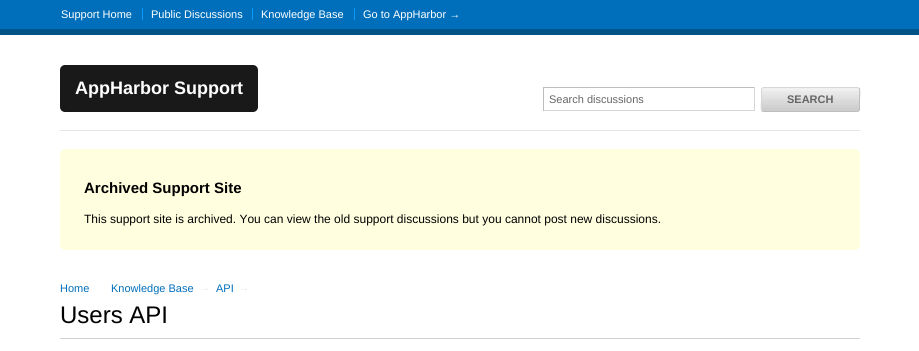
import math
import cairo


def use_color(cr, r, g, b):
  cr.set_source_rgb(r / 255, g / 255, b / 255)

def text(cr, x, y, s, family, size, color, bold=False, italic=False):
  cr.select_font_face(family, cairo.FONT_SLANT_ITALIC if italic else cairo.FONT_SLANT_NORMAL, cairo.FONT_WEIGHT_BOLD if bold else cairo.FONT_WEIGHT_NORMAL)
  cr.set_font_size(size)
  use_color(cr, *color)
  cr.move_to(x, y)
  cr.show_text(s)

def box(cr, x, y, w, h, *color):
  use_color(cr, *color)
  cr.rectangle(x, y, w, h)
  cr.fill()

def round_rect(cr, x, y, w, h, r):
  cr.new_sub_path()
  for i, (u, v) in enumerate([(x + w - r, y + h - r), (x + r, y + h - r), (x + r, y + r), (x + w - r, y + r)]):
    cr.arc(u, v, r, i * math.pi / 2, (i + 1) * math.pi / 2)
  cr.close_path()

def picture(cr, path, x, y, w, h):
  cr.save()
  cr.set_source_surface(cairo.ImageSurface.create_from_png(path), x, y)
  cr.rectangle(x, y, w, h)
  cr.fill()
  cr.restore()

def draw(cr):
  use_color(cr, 255, 255, 255)
  cr.paint()
  box(cr, 0, 0, 919, 29, 0, 111, 187)
  box(cr, 0, 29, 919, 6, 0, 85, 136)
  box(cr, 142, 8, 1, 12, 8, 155, 255)
  box(cr, 252, 8, 1, 12, 8, 155, 255)
  box(cr, 354, 8, 1, 12, 8, 155, 255)
  box(cr, 60, 130, 800, 1, 230, 230, 230)
  use_color(cr, 25, 25, 25)
  round_rect(cr, 60, 65, 198, 47, 5)
  cr.fill()
  box(cr, 543, 87, 212, 1, 189, 189, 189)
  box(cr, 754, 87, 1, 24, 214, 214, 214)
  box(cr, 543, 110, 212, 1, 214, 214, 214)
  box(cr, 543, 87, 1, 24, 189, 189, 189)
  use_color(cr, 240, 240, 240)
  round_rect(cr, 761, 87, 99, 25, 3)
  cr.fill()
  picture(cr, "img_01.png", 761, 91, 99, 20)
  cr.new_path()
  cr.move_to(859, 88)
  cr.curve_to(860.5, 90, 859.5, 97, 859.5, 99.5)
  cr.line_to(859.5, 106)
  cr.curve_to(859.5, 108, 860, 111.5, 857, 111.5)
  cr.line_to(764, 111.5)
  cr.line_to(762, 111)
  use_color(cr, 189, 189, 189)
  cr.set_line_width(1)
  cr.stroke()
  cr.new_path()
  cr.move_to(762, 111)
  cr.curve_to(760.5, 109, 761.5, 102, 761.5, 99.5)
  cr.line_to(761.5, 93)
  cr.curve_to(761.5, 91, 761, 87.5, 764, 87.5)
  cr.line_to(857, 87.5)
  cr.line_to(859, 88)
  use_color(cr, 214, 214, 214)
  cr.stroke()
  use_color(cr, 255, 255, 224)
  round_rect(cr, 60, 149, 800, 101, 5)
  cr.fill()
  box(cr, 60, 338, 800, 1, 209, 209, 209)
  text(cr, 61, 18, "Support Home", "Liberation Sans", 11, (255, 255, 255))
  text(cr, 151, 18, "Public Discussions", "Liberation Sans", 11, (255, 255, 255))
  text(cr, 261, 18, "Knowledge Base", "Liberation Sans", 11, (255, 255, 255))
  text(cr, 363, 18, "Go to AppHarbor →", "Liberation Sans", 11, (255, 255, 255))
  text(cr, 75, 94, "AppHarbor Support", "Liberation Sans", 18, (255, 255, 255), bold=True)
  text(cr, 549, 103, "Search discussions", "Liberation Sans", 11, (102, 102, 102))
  text(cr, 787, 103, "SEARCH", "Liberation Sans", 11, (102, 102, 102), bold=True)
  text(cr, 84, 193, "Archived Support Site", "Liberation Sans", 15, (0, 0, 0), bold=True)
  text(cr, 84, 223, "This support site is archived. You can view the old support discussions but you cannot post new discussions.", "Liberation Sans", 12, (0, 0, 0))
  text(cr, 60, 292, "Home", "Liberation Sans", 11, (0, 111, 187))
  text(cr, 111, 292, "Knowledge Base", "Liberation Sans", 11, (0, 111, 187))
  text(cr, 200, 291, "→", "Liberation Sans", 10, (230, 230, 230))
  text(cr, 216, 292, "API", "Liberation Sans", 11, (0, 111, 187))
  text(cr, 239, 291, "→", "Liberation Sans", 10, (230, 230, 230))
  text(cr, 60, 323, "Users API", "Liberation Sans", 24, (0, 0, 0))


surface = cairo.ImageSurface(cairo.FORMAT_RGB24, 919, 351)
cr = cairo.Context(surface)
options = cairo.FontOptions()
options.set_hint_metrics(cairo.HINT_METRICS_OFF)
options.set_hint_style(cairo.HINT_STYLE_NONE)
cr.set_font_options(options)
cr.set_miter_limit(4)
draw(cr)
surface.write_to_png("out.png")
